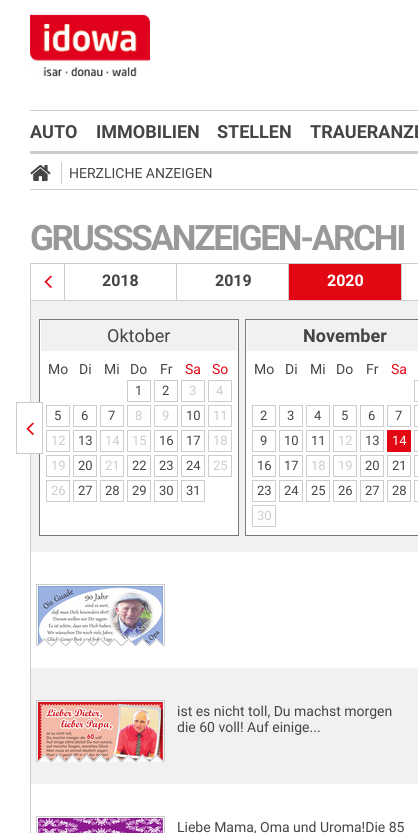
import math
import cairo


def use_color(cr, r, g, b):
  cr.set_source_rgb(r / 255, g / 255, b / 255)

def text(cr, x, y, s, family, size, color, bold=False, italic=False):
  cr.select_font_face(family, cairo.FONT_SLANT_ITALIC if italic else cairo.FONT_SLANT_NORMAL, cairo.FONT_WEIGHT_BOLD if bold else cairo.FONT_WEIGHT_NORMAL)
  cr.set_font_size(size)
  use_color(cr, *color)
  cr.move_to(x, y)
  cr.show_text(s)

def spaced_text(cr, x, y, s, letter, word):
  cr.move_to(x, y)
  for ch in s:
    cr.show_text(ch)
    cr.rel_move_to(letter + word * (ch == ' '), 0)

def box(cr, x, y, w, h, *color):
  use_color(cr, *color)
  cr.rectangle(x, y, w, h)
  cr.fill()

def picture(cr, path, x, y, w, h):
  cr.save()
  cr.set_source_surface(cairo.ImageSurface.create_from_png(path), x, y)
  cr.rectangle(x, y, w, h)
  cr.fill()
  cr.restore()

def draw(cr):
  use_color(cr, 255, 255, 255)
  cr.paint()
  picture(cr, "img_01.png", 30, 14, 120, 63)
  box(cr, 30, 110, 388, 1, 204, 204, 204)
  box(cr, 30, 151, 388, 3, 204, 204, 204)
  box(cr, 30, 189, 388, 1, 204, 204, 204)
  picture(cr, "img_02.png", 30, 165, 21, 16)
  box(cr, 61, 162, 1, 22, 204, 204, 204)
  box(cr, 31, 301, 387, 483, 241, 241, 241)
  cr.rectangle(30.5, 263.5, 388, 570)
  use_color(cr, 204, 204, 204)
  cr.set_line_width(1)
  cr.stroke()
  cr.rectangle(30.5, 263.5, 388, 37)
  cr.stroke()
  box(cr, 64, 264, 1, 36, 204, 204, 204)
  picture(cr, "img_03.png", 44, 275, 8, 13)
  box(cr, 176, 264, 1, 36, 204, 204, 204)
  box(cr, 288, 264, 1, 36, 204, 204, 204)
  box(cr, 289, 264, 112, 36, 227, 6, 19)
  box(cr, 401, 264, 1, 36, 204, 204, 204)
  use_color(cr, 255, 255, 255)
  cr.rectangle(39.5, 319.5, 199, 216)
  cr.fill_preserve()
  use_color(cr, 119, 119, 119)
  cr.stroke()
  box(cr, 30, 403, 10, 50, 255, 255, 255)
  cr.rectangle(16.5, 402.5, 26, 51)
  use_color(cr, 204, 204, 204)
  cr.stroke()
  picture(cr, "img_03.png", 26, 422, 8, 13)
  box(cr, 41, 320, 196, 31, 241, 241, 241)
  cr.rectangle(127.5, 380.5, 23, 21)
  use_color(cr, 204, 204, 204)
  cr.stroke()
  cr.rectangle(154.5, 380.5, 23, 21)
  cr.stroke()
  cr.rectangle(181.5, 380.5, 23, 21)
  cr.stroke()
  cr.rectangle(208.5, 380.5, 23, 21)
  cr.stroke()
  cr.rectangle(46.5, 405.5, 23, 21)
  cr.stroke()
  cr.rectangle(73.5, 405.5, 23, 21)
  cr.stroke()
  cr.rectangle(100.5, 405.5, 23, 21)
  cr.stroke()
  cr.rectangle(127.5, 405.5, 23, 21)
  cr.stroke()
  cr.rectangle(154.5, 405.5, 23, 21)
  cr.stroke()
  cr.rectangle(181.5, 405.5, 23, 21)
  cr.stroke()
  cr.rectangle(208.5, 405.5, 23, 21)
  cr.stroke()
  cr.rectangle(46.5, 430.5, 23, 21)
  cr.stroke()
  cr.rectangle(73.5, 430.5, 23, 21)
  cr.stroke()
  cr.rectangle(100.5, 430.5, 23, 21)
  cr.stroke()
  cr.rectangle(127.5, 430.5, 23, 21)
  cr.stroke()
  cr.rectangle(154.5, 430.5, 23, 21)
  cr.stroke()
  cr.rectangle(181.5, 430.5, 23, 21)
  cr.stroke()
  cr.rectangle(208.5, 430.5, 23, 21)
  cr.stroke()
  cr.rectangle(46.5, 455.5, 23, 21)
  cr.stroke()
  cr.rectangle(73.5, 455.5, 23, 21)
  cr.stroke()
  cr.rectangle(100.5, 455.5, 23, 21)
  cr.stroke()
  cr.rectangle(127.5, 455.5, 23, 21)
  cr.stroke()
  cr.rectangle(154.5, 455.5, 23, 21)
  cr.stroke()
  cr.rectangle(181.5, 455.5, 23, 21)
  cr.stroke()
  cr.rectangle(208.5, 455.5, 23, 21)
  cr.stroke()
  cr.rectangle(46.5, 480.5, 23, 21)
  cr.stroke()
  cr.rectangle(73.5, 480.5, 23, 21)
  cr.stroke()
  cr.rectangle(100.5, 480.5, 23, 21)
  cr.stroke()
  cr.rectangle(127.5, 480.5, 23, 21)
  cr.stroke()
  cr.rectangle(154.5, 480.5, 23, 21)
  cr.stroke()
  cr.rectangle(181.5, 480.5, 23, 21)
  cr.stroke()
  use_color(cr, 255, 255, 255)
  cr.rectangle(245.5, 319.5, 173, 216)
  cr.fill_preserve()
  use_color(cr, 119, 119, 119)
  cr.stroke()
  box(cr, 247, 320, 171, 31, 241, 241, 241)
  cr.rectangle(414.5, 380.5, 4, 21)
  use_color(cr, 204, 204, 204)
  cr.stroke()
  cr.rectangle(252.5, 405.5, 23, 21)
  cr.stroke()
  cr.rectangle(279.5, 405.5, 23, 21)
  cr.stroke()
  cr.rectangle(306.5, 405.5, 23, 21)
  cr.stroke()
  cr.rectangle(333.5, 405.5, 23, 21)
  cr.stroke()
  cr.rectangle(360.5, 405.5, 23, 21)
  cr.stroke()
  cr.rectangle(387.5, 405.5, 23, 21)
  cr.stroke()
  cr.rectangle(414.5, 405.5, 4, 21)
  cr.stroke()
  cr.rectangle(252.5, 430.5, 23, 21)
  cr.stroke()
  cr.rectangle(279.5, 430.5, 23, 21)
  cr.stroke()
  cr.rectangle(306.5, 430.5, 23, 21)
  cr.stroke()
  cr.rectangle(333.5, 430.5, 23, 21)
  cr.stroke()
  cr.rectangle(360.5, 430.5, 23, 21)
  cr.stroke()
  box(cr, 387, 430, 24, 22, 227, 6, 19)
  cr.rectangle(414.5, 430.5, 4, 21)
  use_color(cr, 204, 204, 204)
  cr.stroke()
  cr.rectangle(252.5, 455.5, 23, 21)
  cr.stroke()
  cr.rectangle(279.5, 455.5, 23, 21)
  cr.stroke()
  cr.rectangle(306.5, 455.5, 23, 21)
  cr.stroke()
  cr.rectangle(333.5, 455.5, 23, 21)
  cr.stroke()
  cr.rectangle(360.5, 455.5, 23, 21)
  cr.stroke()
  cr.rectangle(387.5, 455.5, 23, 21)
  cr.stroke()
  cr.rectangle(414.5, 455.5, 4, 21)
  cr.stroke()
  cr.rectangle(252.5, 480.5, 23, 21)
  cr.stroke()
  cr.rectangle(279.5, 480.5, 23, 21)
  cr.stroke()
  cr.rectangle(306.5, 480.5, 23, 21)
  cr.stroke()
  cr.rectangle(333.5, 480.5, 23, 21)
  cr.stroke()
  cr.rectangle(360.5, 480.5, 23, 21)
  cr.stroke()
  cr.rectangle(387.5, 480.5, 23, 21)
  cr.stroke()
  cr.rectangle(414.5, 480.5, 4, 21)
  cr.stroke()
  cr.rectangle(252.5, 505.5, 23, 21)
  cr.stroke()
  box(cr, 31, 552, 387, 116, 255, 255, 255)
  box(cr, 36, 584, 129, 1, 204, 204, 204)
  box(cr, 164, 584, 1, 62, 204, 204, 204)
  box(cr, 36, 584, 1, 62, 204, 204, 204)
  picture(cr, "img_04.png", 38, 586, 125, 59)
  picture(cr, "img_05.png", 37, 638, 127, 8)
  box(cr, 36, 700, 129, 1, 204, 204, 204)
  box(cr, 164, 700, 1, 62, 204, 204, 204)
  box(cr, 36, 700, 1, 62, 204, 204, 204)
  picture(cr, "img_06.png", 38, 702, 125, 59)
  picture(cr, "img_07.png", 37, 754, 127, 8)
  box(cr, 36, 816, 129, 1, 204, 204, 204)
  box(cr, 164, 816, 1, 17, 204, 204, 204)
  box(cr, 36, 816, 1, 17, 204, 204, 204)
  picture(cr, "img_08.png", 38, 818, 125, 15)
  text(cr, 30, 138, "AUTO", "Roboto", 18, (69, 69, 69), bold=True)
  text(cr, 96, 138, "IMMOBILIEN", "Roboto", 18, (69, 69, 69), bold=True)
  text(cr, 217, 138, "STELLEN", "Roboto", 18, (69, 69, 69), bold=True)
  text(cr, 310, 138, "TRAUERANZE", "Roboto", 18, (69, 69, 69), bold=True)
  text(cr, 69, 178, "HERZLICHE ANZEIGEN", "Roboto", 14, (69, 69, 69))
  cr.select_font_face("Roboto", cairo.FONT_SLANT_NORMAL, cairo.FONT_WEIGHT_BOLD)
  cr.set_font_size(35)
  use_color(cr, 153, 153, 153)
  spaced_text(cr, 30, 250, "GRUSSSANZEIGEN-ARCHI", -2.25, 0)
  text(cr, 102, 286, "2018", "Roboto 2", 16, (69, 69, 69), bold=True)
  text(cr, 215, 286, "2019", "Roboto 2", 16, (69, 69, 69), bold=True)
  text(cr, 327, 286, "2020", "Roboto 2", 16, (255, 255, 255), bold=True)
  text(cr, 107, 342, "Oktober", "Roboto", 18, (69, 69, 69))
  text(cr, 48, 374, "Mo", "Roboto", 14, (69, 69, 69))
  text(cr, 79, 374, "Di", "Roboto", 14, (69, 69, 69))
  text(cr, 104, 374, "Mi", "Roboto", 14, (69, 69, 69))
  text(cr, 130, 374, "Do", "Roboto", 14, (69, 69, 69))
  text(cr, 160, 374, "Fr", "Roboto", 14, (69, 69, 69))
  text(cr, 185, 374, "Sa", "Roboto", 14, (227, 6, 19))
  text(cr, 212, 374, "So", "Roboto", 14, (227, 6, 19))
  text(cr, 135, 395, "1", "Roboto", 13, (69, 69, 69))
  text(cr, 162, 395, "2", "Roboto", 13, (69, 69, 69))
  text(cr, 189, 395, "3", "Roboto", 13, (204, 204, 204))
  text(cr, 216, 395, "4", "Roboto", 13, (204, 204, 204))
  text(cr, 54, 420, "5", "Roboto", 13, (69, 69, 69))
  text(cr, 81, 420, "6", "Roboto", 13, (69, 69, 69))
  text(cr, 108, 420, "7", "Roboto", 13, (69, 69, 69))
  text(cr, 135, 420, "8", "Roboto", 13, (204, 204, 204))
  text(cr, 162, 420, "9", "Roboto", 13, (204, 204, 204))
  text(cr, 186, 420, "10", "Roboto", 13, (69, 69, 69))
  text(cr, 213, 420, "11", "Roboto", 13, (204, 204, 204))
  text(cr, 51, 445, "12", "Roboto", 13, (204, 204, 204))
  text(cr, 78, 445, "13", "Roboto", 13, (69, 69, 69))
  text(cr, 105, 445, "14", "Roboto", 13, (204, 204, 204))
  text(cr, 132, 445, "15", "Roboto", 13, (204, 204, 204))
  text(cr, 159, 445, "16", "Roboto", 13, (69, 69, 69))
  text(cr, 186, 445, "17", "Roboto", 13, (69, 69, 69))
  text(cr, 213, 445, "18", "Roboto", 13, (204, 204, 204))
  text(cr, 51, 470, "19", "Roboto", 13, (204, 204, 204))
  text(cr, 78, 470, "20", "Roboto", 13, (69, 69, 69))
  text(cr, 105, 470, "21", "Roboto", 13, (204, 204, 204))
  text(cr, 132, 470, "22", "Roboto", 13, (69, 69, 69))
  text(cr, 159, 470, "23", "Roboto", 13, (69, 69, 69))
  text(cr, 186, 470, "24", "Roboto", 13, (69, 69, 69))
  text(cr, 213, 470, "25", "Roboto", 13, (204, 204, 204))
  text(cr, 51, 495, "26", "Roboto", 13, (204, 204, 204))
  text(cr, 78, 495, "27", "Roboto", 13, (69, 69, 69))
  text(cr, 105, 495, "28", "Roboto", 13, (69, 69, 69))
  text(cr, 132, 495, "29", "Roboto", 13, (69, 69, 69))
  text(cr, 159, 495, "30", "Roboto", 13, (69, 69, 69))
  text(cr, 186, 495, "31", "Roboto", 13, (69, 69, 69))
  text(cr, 303, 342, "November", "Roboto 2", 18, (69, 69, 69), bold=True)
  text(cr, 254, 374, "Mo", "Roboto", 14, (69, 69, 69))
  text(cr, 285, 374, "Di", "Roboto", 14, (69, 69, 69))
  text(cr, 310, 374, "Mi", "Roboto", 14, (69, 69, 69))
  text(cr, 336, 374, "Do", "Roboto", 14, (69, 69, 69))
  text(cr, 366, 374, "Fr", "Roboto", 14, (69, 69, 69))
  text(cr, 391, 374, "Sa", "Roboto", 14, (227, 6, 19))
  text(cr, 260, 420, "2", "Roboto", 13, (69, 69, 69))
  text(cr, 287, 420, "3", "Roboto", 13, (69, 69, 69))
  text(cr, 314, 420, "4", "Roboto", 13, (69, 69, 69))
  text(cr, 341, 420, "5", "Roboto", 13, (69, 69, 69))
  text(cr, 368, 420, "6", "Roboto", 13, (69, 69, 69))
  text(cr, 395, 420, "7", "Roboto", 13, (69, 69, 69))
  text(cr, 260, 445, "9", "Roboto", 13, (69, 69, 69))
  text(cr, 284, 445, "10", "Roboto", 13, (69, 69, 69))
  text(cr, 311, 445, "11", "Roboto", 13, (69, 69, 69))
  text(cr, 338, 445, "12", "Roboto", 13, (204, 204, 204))
  text(cr, 365, 445, "13", "Roboto", 13, (69, 69, 69))
  text(cr, 392, 445, "14", "Roboto", 13, (255, 255, 255))
  text(cr, 257, 470, "16", "Roboto", 13, (69, 69, 69))
  text(cr, 284, 470, "17", "Roboto", 13, (69, 69, 69))
  text(cr, 311, 470, "18", "Roboto", 13, (204, 204, 204))
  text(cr, 338, 470, "19", "Roboto", 13, (204, 204, 204))
  text(cr, 365, 470, "20", "Roboto", 13, (69, 69, 69))
  text(cr, 392, 470, "21", "Roboto", 13, (69, 69, 69))
  text(cr, 257, 495, "23", "Roboto", 13, (69, 69, 69))
  text(cr, 284, 495, "24", "Roboto", 13, (69, 69, 69))
  text(cr, 311, 495, "25", "Roboto", 13, (69, 69, 69))
  text(cr, 338, 495, "26", "Roboto", 13, (69, 69, 69))
  text(cr, 365, 495, "27", "Roboto", 13, (69, 69, 69))
  text(cr, 392, 495, "28", "Roboto", 13, (69, 69, 69))
  text(cr, 257, 520, "30", "Roboto", 13, (204, 204, 204))
  text(cr, 177, 716, "ist es nicht toll, Du machst morgen", "Roboto", 14, (69, 69, 69))
  text(cr, 177, 732, "die 60 voll! Auf einige...", "Roboto", 14, (69, 69, 69))
  text(cr, 177, 832, "Liebe Mama, Oma und Uroma!Die 85", "Roboto", 14, (69, 69, 69))


surface = cairo.ImageSurface(cairo.FORMAT_RGB24, 418, 833)
cr = cairo.Context(surface)
options = cairo.FontOptions()
options.set_hint_metrics(cairo.HINT_METRICS_OFF)
options.set_hint_style(cairo.HINT_STYLE_NONE)
cr.set_font_options(options)
cr.set_miter_limit(4)
draw(cr)
surface.write_to_png("out.png")
